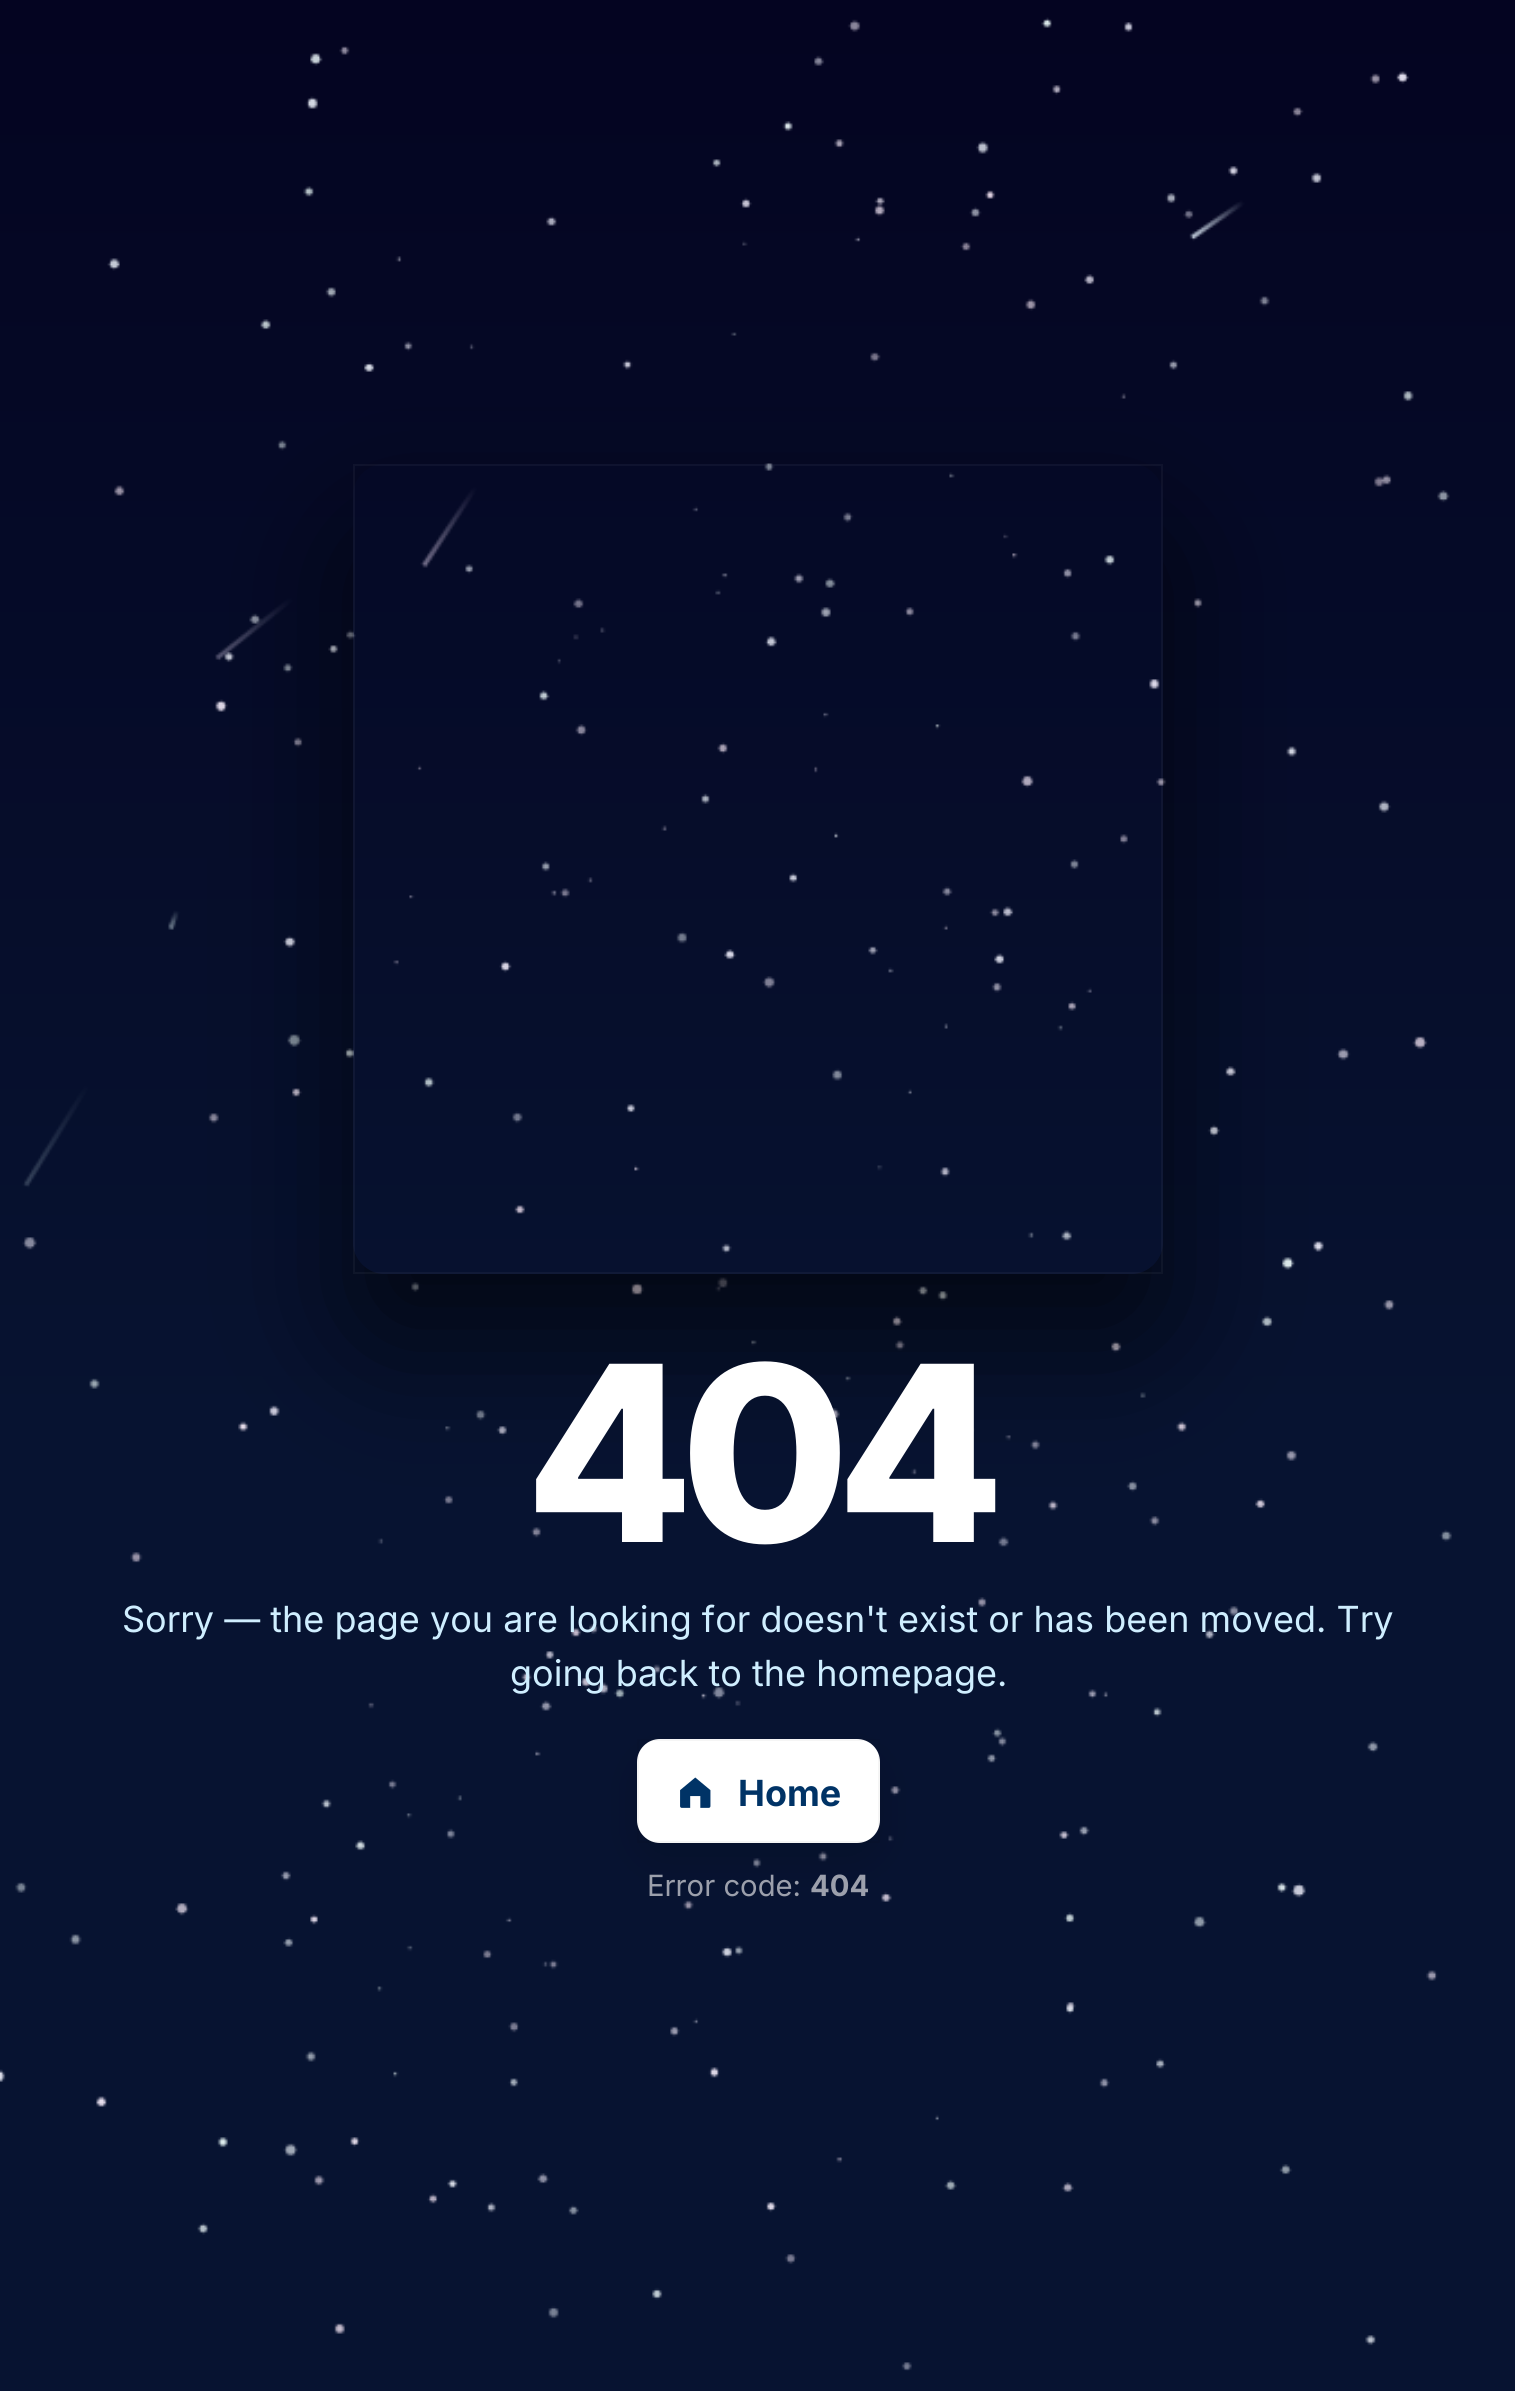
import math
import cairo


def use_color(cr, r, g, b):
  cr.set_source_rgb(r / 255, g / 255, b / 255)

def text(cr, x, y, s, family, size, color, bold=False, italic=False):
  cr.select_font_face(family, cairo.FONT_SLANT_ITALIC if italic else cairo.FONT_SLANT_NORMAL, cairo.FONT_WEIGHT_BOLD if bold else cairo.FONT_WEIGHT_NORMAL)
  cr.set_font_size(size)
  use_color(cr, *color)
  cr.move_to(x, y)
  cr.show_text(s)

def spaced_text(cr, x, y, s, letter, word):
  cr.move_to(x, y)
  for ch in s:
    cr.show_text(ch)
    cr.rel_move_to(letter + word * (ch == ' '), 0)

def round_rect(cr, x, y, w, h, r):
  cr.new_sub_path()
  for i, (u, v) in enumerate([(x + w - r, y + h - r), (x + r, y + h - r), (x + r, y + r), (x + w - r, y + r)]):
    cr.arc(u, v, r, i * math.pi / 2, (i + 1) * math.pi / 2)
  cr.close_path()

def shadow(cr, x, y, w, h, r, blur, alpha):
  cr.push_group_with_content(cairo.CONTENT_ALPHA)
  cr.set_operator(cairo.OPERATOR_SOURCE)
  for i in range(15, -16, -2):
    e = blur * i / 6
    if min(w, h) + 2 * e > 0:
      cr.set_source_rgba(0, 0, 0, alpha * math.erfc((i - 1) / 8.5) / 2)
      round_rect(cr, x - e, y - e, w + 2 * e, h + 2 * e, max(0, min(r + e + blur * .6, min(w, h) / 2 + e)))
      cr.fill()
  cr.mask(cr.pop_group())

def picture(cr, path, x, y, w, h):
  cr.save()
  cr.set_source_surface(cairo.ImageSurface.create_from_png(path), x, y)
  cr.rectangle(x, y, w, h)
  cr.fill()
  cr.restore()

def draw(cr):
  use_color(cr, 255, 255, 255)
  cr.paint()
  gradient = cairo.LinearGradient(758, 0, 758, 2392)
  gradient.add_color_stop_rgba(0, 0.016, 0.016, 0.129, 1)
  gradient.add_color_stop_rgba(0.6, 0.027, 0.075, 0.192, 1)
  cr.set_source(gradient)
  cr.rectangle(0, 0, 1515, 2391)
  cr.fill()
  picture(cr, "img_01.png", 0, 17, 1452, 2354)
  cr.save()
  cr.set_fill_rule(cairo.FILL_RULE_EVEN_ODD)
  cr.new_path()
  cr.move_to(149, 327)
  cr.line_to(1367, 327)
  cr.line_to(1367, 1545)
  cr.line_to(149, 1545)
  cr.close_path()
  cr.move_to(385, 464)
  cr.line_to(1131, 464)
  cr.curve_to(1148.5, 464, 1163, 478.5, 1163, 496)
  cr.line_to(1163, 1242)
  cr.curve_to(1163, 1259.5, 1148.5, 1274, 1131, 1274)
  cr.line_to(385, 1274)
  cr.curve_to(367.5, 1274, 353, 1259.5, 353, 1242)
  cr.line_to(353, 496)
  cr.curve_to(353, 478.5, 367.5, 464, 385, 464)
  cr.close_path()
  cr.clip()
  use_color(cr, 0, 0, 0)
  shadow(cr, 353, 531, 810, 810, 32, 67.5, 0.6)
  cr.restore()
  cr.rectangle(354, 465, 808, 808)
  cr.set_source_rgba(1, 1, 1, 0.04)
  cr.stroke()
  use_color(cr, 0, 0, 0)
  shadow(cr, 637, 1757, 243, 104, 23, 22.5, 0.12)
  use_color(cr, 255, 255, 255)
  round_rect(cr, 637, 1739, 243, 104, 23)
  cr.fill()
  cr.rectangle(638, 1740, 241, 102)
  cr.set_source_rgba(0, 0, 0, 0.04)
  cr.stroke()
  picture(cr, "img_02.png", 680, 1777, 31, 31)
  cr.select_font_face("Inter ExtraBold")
  cr.set_font_size(245)
  use_color(cr, 255, 255, 255)
  spaced_text(cr, 525, 1542, "404", -13.5, 0)
  text(cr, 122, 1632, "Sorry — the page you are looking for doesn't exist or has been moved. Try", "Inter", 36, (207, 238, 255))
  text(cr, 510, 1686, "going back to the homepage.", "Inter", 36, (207, 238, 255))
  text(cr, 738, 1806, "Home", "Inter", 36, (0, 51, 102), bold=True)
  text(cr, 647, 1896, "Error code:", "Inter", 29.25, (156, 160, 172))
  text(cr, 810, 1896, "404", "Inter", 29.25, (156, 160, 172), bold=True)


surface = cairo.ImageSurface(cairo.FORMAT_RGB24, 1515, 2391)
cr = cairo.Context(surface)
options = cairo.FontOptions()
options.set_hint_metrics(cairo.HINT_METRICS_OFF)
options.set_hint_style(cairo.HINT_STYLE_NONE)
cr.set_font_options(options)
cr.set_miter_limit(4)
draw(cr)
surface.write_to_png("out.png")
